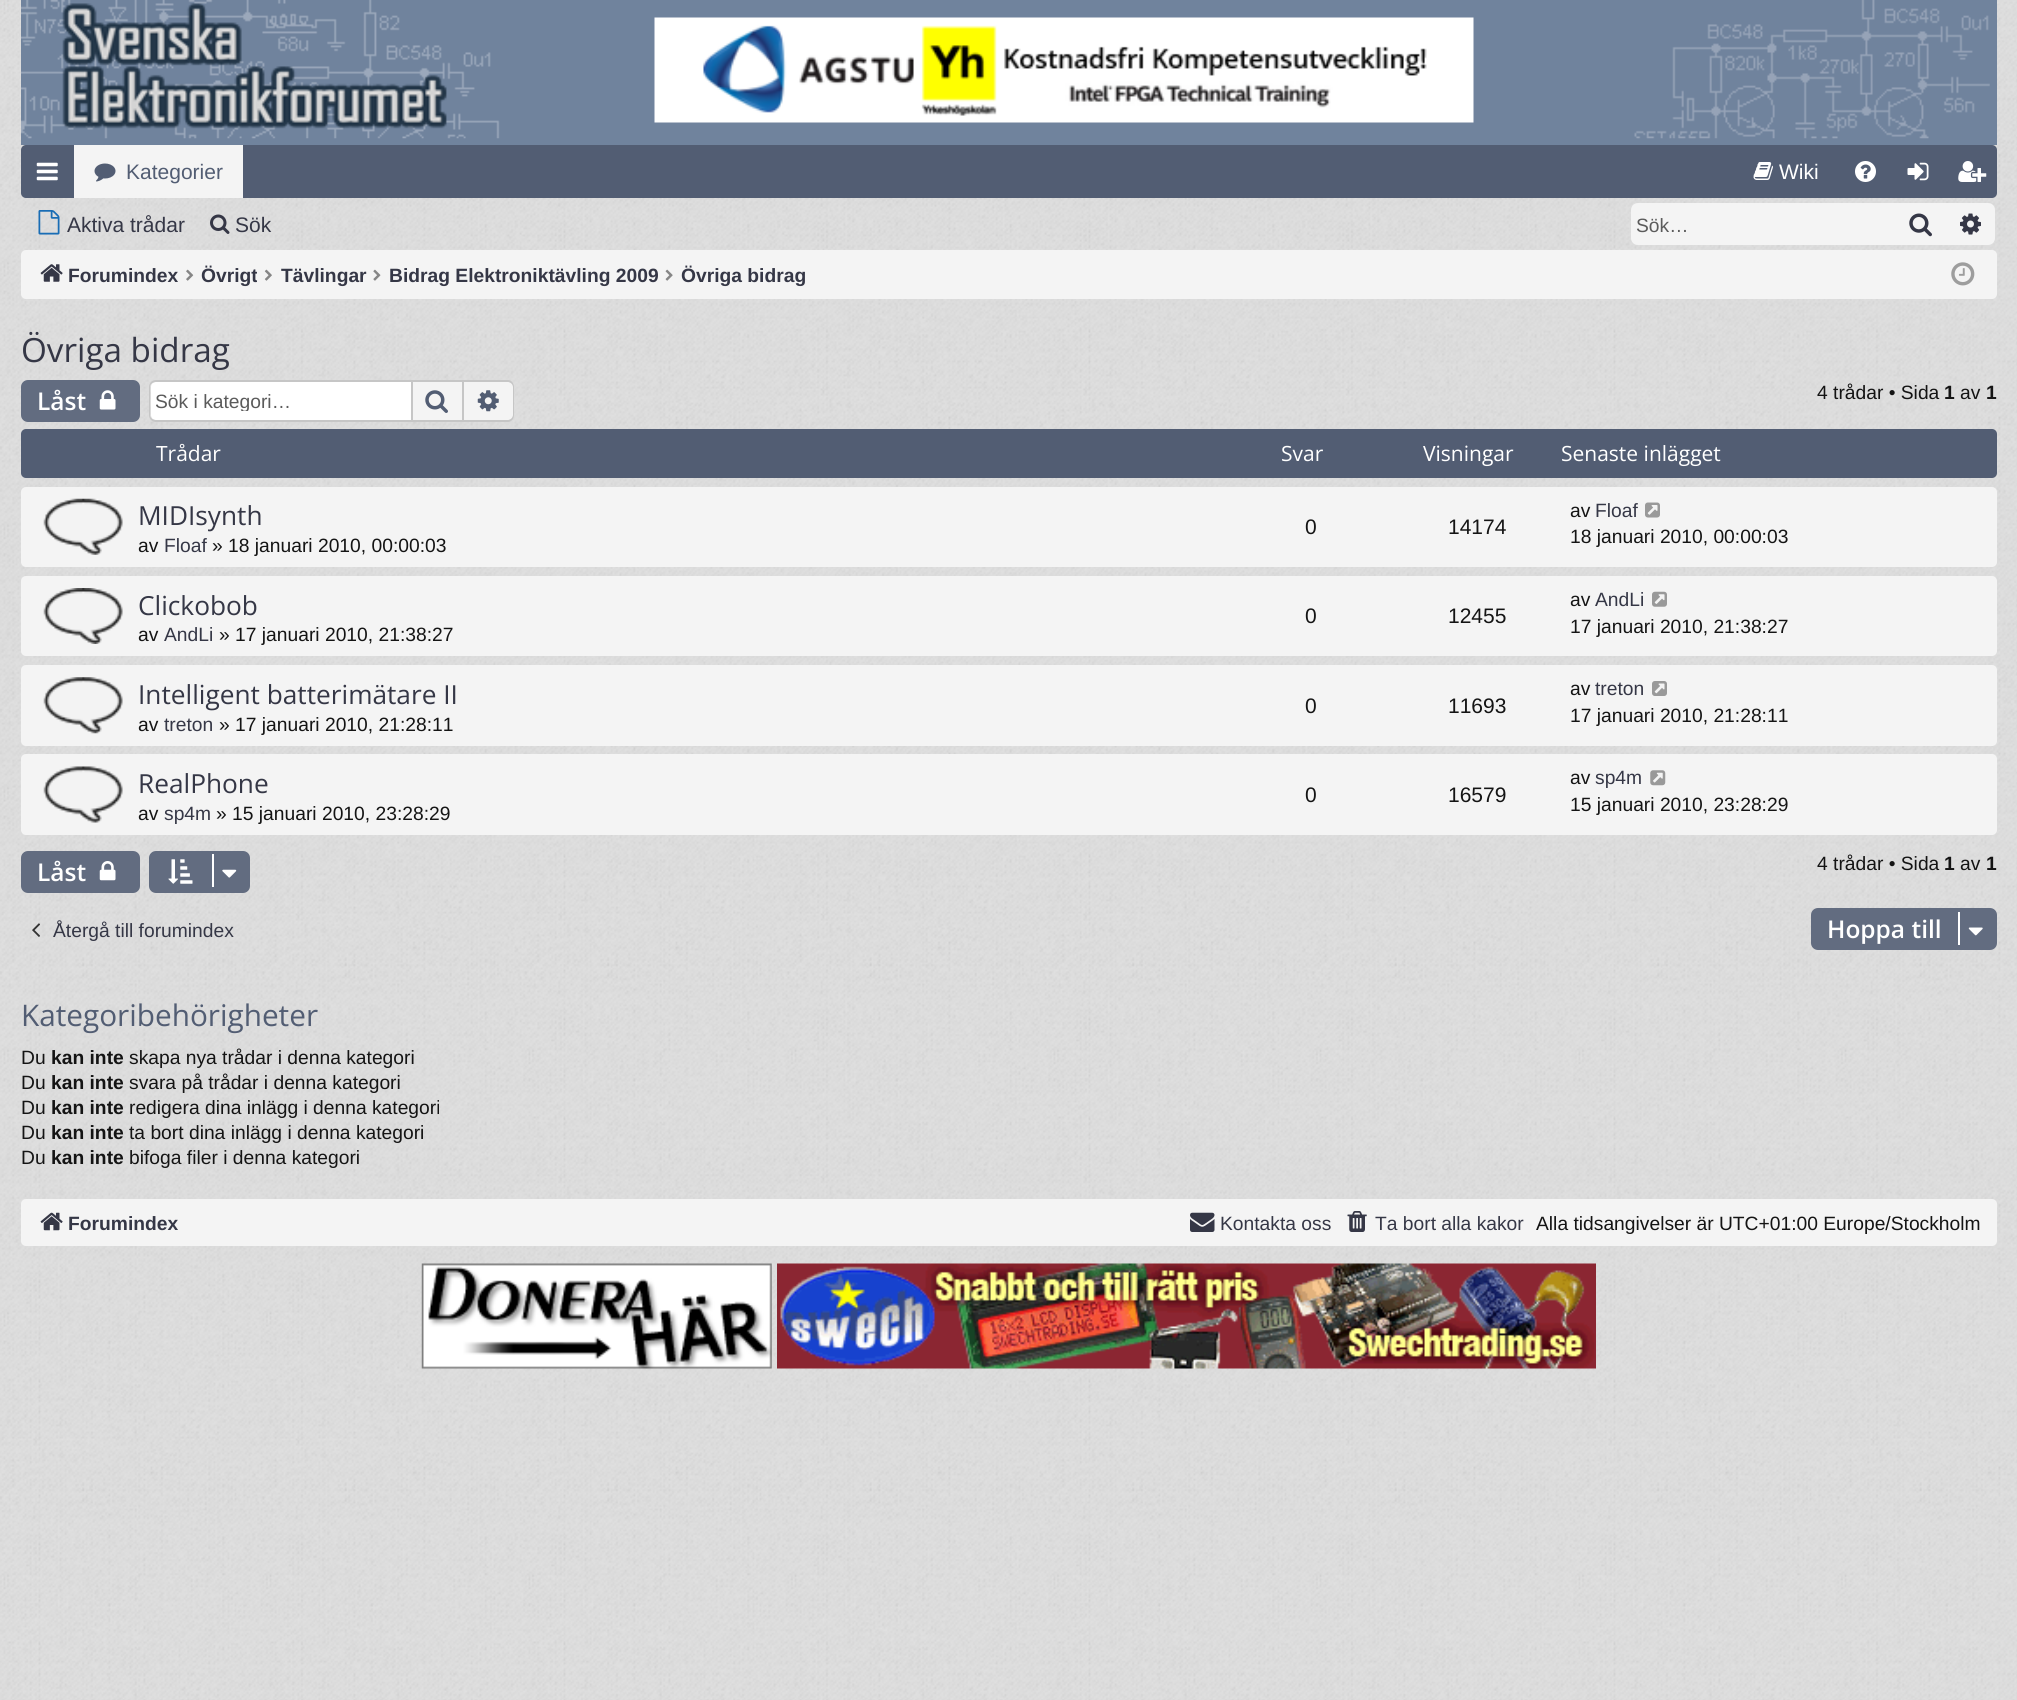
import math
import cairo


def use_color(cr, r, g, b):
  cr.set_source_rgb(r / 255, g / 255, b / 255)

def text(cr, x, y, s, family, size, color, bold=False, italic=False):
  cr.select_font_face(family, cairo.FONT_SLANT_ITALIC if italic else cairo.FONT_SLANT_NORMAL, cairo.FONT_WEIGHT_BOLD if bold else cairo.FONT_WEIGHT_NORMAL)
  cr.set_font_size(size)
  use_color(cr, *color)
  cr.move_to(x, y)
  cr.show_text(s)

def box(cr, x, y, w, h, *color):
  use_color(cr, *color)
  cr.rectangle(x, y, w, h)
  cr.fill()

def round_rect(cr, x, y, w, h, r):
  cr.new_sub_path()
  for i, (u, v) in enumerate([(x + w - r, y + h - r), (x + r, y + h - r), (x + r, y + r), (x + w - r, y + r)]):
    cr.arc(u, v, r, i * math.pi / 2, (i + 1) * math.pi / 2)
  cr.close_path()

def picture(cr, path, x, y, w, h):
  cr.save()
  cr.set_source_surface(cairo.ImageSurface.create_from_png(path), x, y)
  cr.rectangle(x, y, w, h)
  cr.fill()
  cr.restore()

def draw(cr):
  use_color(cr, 224, 224, 224)
  cr.paint()
  picture(cr, "img_01.png", 0, 0, 2017, 1700)
  box(cr, 21, 0, 1976, 145, 112, 131, 157)
  picture(cr, "img_02.png", 21, 0, 479, 139)
  picture(cr, "img_03.png", 654, 17, 820, 106)
  picture(cr, "img_04.png", 1634, 0, 356, 139)
  use_color(cr, 82, 93, 115)
  round_rect(cr, 21, 145, 1976, 53, 5)
  cr.fill()
  picture(cr, "img_05.png", 36, 162, 22, 19)
  box(cr, 74, 145, 169, 53, 244, 244, 244)
  picture(cr, "img_06.png", 94, 163, 22, 19)
  picture(cr, "img_07.png", 1753, 162, 20, 18)
  picture(cr, "img_08.png", 1855, 161, 21, 21)
  picture(cr, "img_09.png", 1907, 162, 22, 19)
  picture(cr, "img_10.png", 1958, 161, 29, 21)
  picture(cr, "img_11.png", 38, 210, 22, 25)
  picture(cr, "img_12.png", 210, 214, 20, 20)
  cr.new_path()
  cr.move_to(1638, 203)
  cr.line_to(1894, 203)
  cr.line_to(1894, 245)
  cr.line_to(1638, 245)
  cr.curve_to(1634, 245, 1631, 242, 1631, 238)
  cr.line_to(1631, 210)
  cr.curve_to(1631, 206, 1634, 203, 1638, 203)
  cr.close_path()
  cr.fill()
  box(cr, 1894, 203, 52, 42, 244, 244, 244)
  picture(cr, "img_13.png", 1909, 213, 23, 24)
  cr.new_path()
  cr.move_to(1946, 203)
  cr.line_to(1988, 203)
  cr.curve_to(1992, 203, 1995, 206, 1995, 210)
  cr.line_to(1995, 238)
  cr.curve_to(1995, 242, 1992, 245, 1988, 245)
  cr.line_to(1946, 245)
  cr.close_path()
  cr.fill()
  picture(cr, "img_14.png", 1960, 213, 21, 22)
  round_rect(cr, 21, 250, 1976, 49, 5)
  cr.fill()
  picture(cr, "img_15.png", 40, 264, 23, 18)
  picture(cr, "img_16.png", 186, 269, 8, 12)
  picture(cr, "img_17.png", 264, 269, 8, 12)
  picture(cr, "img_18.png", 373, 269, 8, 12)
  picture(cr, "img_19.png", 665, 269, 8, 12)
  picture(cr, "img_20.png", 1951, 262, 24, 24)
  use_color(cr, 98, 108, 128)
  round_rect(cr, 22, 381, 117, 40, 6)
  cr.fill_preserve()
  cr.stroke()
  picture(cr, "img_21.png", 99, 390, 17, 20)
  use_color(cr, 255, 255, 255)
  cr.new_path()
  cr.move_to(156, 382)
  cr.line_to(411, 382)
  cr.line_to(411, 420)
  cr.line_to(156, 420)
  cr.curve_to(153, 420, 151, 418, 151, 415)
  cr.line_to(151, 387)
  cr.curve_to(151, 384, 153, 382, 156, 382)
  cr.close_path()
  cr.fill()
  use_color(cr, 198, 198, 198)
  cr.set_fill_rule(cairo.FILL_RULE_EVEN_ODD)
  cr.new_path()
  cr.move_to(156, 380)
  cr.line_to(411, 380)
  cr.line_to(411, 422)
  cr.line_to(156, 422)
  cr.curve_to(152, 422, 149, 419, 149, 415)
  cr.line_to(149, 387)
  cr.curve_to(149, 383, 152, 380, 156, 380)
  cr.close_path()
  cr.move_to(156, 382)
  cr.line_to(411, 382)
  cr.line_to(411, 420)
  cr.line_to(156, 420)
  cr.curve_to(153, 420, 150, 418, 150, 415)
  cr.line_to(150, 387)
  cr.curve_to(150, 384, 153, 382, 156, 382)
  cr.close_path()
  cr.fill()
  use_color(cr, 244, 244, 244)
  cr.rectangle(412, 381, 51, 40)
  cr.fill_preserve()
  use_color(cr, 198, 198, 198)
  cr.stroke()
  picture(cr, "img_22.png", 425, 390, 23, 23)
  use_color(cr, 244, 244, 244)
  cr.new_path()
  cr.move_to(464, 382)
  cr.line_to(508, 382)
  cr.curve_to(511, 382, 513, 384, 513, 387)
  cr.line_to(513, 415)
  cr.curve_to(513, 418, 511, 420, 508, 420)
  cr.line_to(464, 420)
  cr.close_path()
  cr.fill()
  use_color(cr, 198, 198, 198)
  cr.new_path()
  cr.move_to(464, 380)
  cr.line_to(508, 380)
  cr.curve_to(511, 380, 514, 383, 514, 387)
  cr.line_to(514, 415)
  cr.curve_to(514, 419, 511, 422, 508, 422)
  cr.line_to(464, 422)
  cr.close_path()
  cr.move_to(464, 382)
  cr.line_to(508, 382)
  cr.curve_to(510, 382, 513, 384, 513, 387)
  cr.line_to(513, 415)
  cr.curve_to(513, 418, 510, 420, 508, 420)
  cr.line_to(464, 420)
  cr.close_path()
  cr.fill()
  picture(cr, "img_23.png", 477, 390, 22, 22)
  use_color(cr, 82, 93, 115)
  round_rect(cr, 21, 429, 1976, 49, 5)
  cr.fill()
  use_color(cr, 244, 244, 244)
  round_rect(cr, 21, 487, 1976, 80, 5)
  cr.fill()
  picture(cr, "img_24.png", 43, 498, 80, 57)
  picture(cr, "img_25.png", 1645, 502, 15, 16)
  round_rect(cr, 21, 576, 1976, 80, 5)
  cr.fill()
  picture(cr, "img_26.png", 43, 588, 80, 56)
  picture(cr, "img_27.png", 1652, 591, 15, 16)
  round_rect(cr, 21, 665, 1976, 81, 5)
  cr.fill()
  picture(cr, "img_28.png", 43, 677, 80, 57)
  picture(cr, "img_29.png", 1652, 681, 15, 15)
  round_rect(cr, 21, 754, 1976, 81, 5)
  cr.fill()
  picture(cr, "img_30.png", 43, 766, 80, 57)
  picture(cr, "img_31.png", 1650, 770, 16, 16)
  use_color(cr, 98, 108, 128)
  round_rect(cr, 22, 852, 117, 40, 6)
  cr.fill_preserve()
  cr.stroke()
  picture(cr, "img_32.png", 99, 861, 17, 20)
  round_rect(cr, 150, 852, 99, 40, 6)
  cr.fill_preserve()
  cr.stroke()
  picture(cr, "img_33.png", 168, 859, 25, 25)
  box(cr, 212, 854, 2, 33, 255, 255, 255)
  picture(cr, "img_34.png", 222, 869, 15, 9)
  picture(cr, "img_35.png", 32, 923, 8, 14)
  use_color(cr, 98, 108, 128)
  round_rect(cr, 1812, 909, 184, 40, 6)
  cr.fill_preserve()
  cr.stroke()
  box(cr, 1958, 912, 2, 33, 255, 255, 255)
  picture(cr, "img_36.png", 1968, 927, 15, 9)
  use_color(cr, 244, 244, 244)
  round_rect(cr, 21, 1199, 1976, 47, 5)
  cr.fill()
  picture(cr, "img_37.png", 40, 1212, 23, 19)
  picture(cr, "img_38.png", 1190, 1212, 25, 20)
  picture(cr, "img_39.png", 1347, 1211, 20, 21)
  picture(cr, "img_40.png", 421, 1263, 351, 106)
  picture(cr, "img_41.png", 777, 1263, 819, 106)
  text(cr, 126, 179, "Kategorier", "Liberation Sans", 21, (82, 93, 115))
  text(cr, 1779, 179, "Wiki", "Liberation Sans", 21, (255, 255, 255))
  text(cr, 67, 232, "Aktiva trådar", "Liberation Sans", 21, (53, 55, 70))
  text(cr, 235, 232, "Sök", "Liberation Sans", 21, (53, 55, 70))
  text(cr, 1636, 232, "Sök…", "Liberation Sans", 19.25, (91, 91, 91))
  text(cr, 68, 282, "Forumindex", "Liberation Sans", 19.25, (53, 55, 70), bold=True)
  cr.save()
  cr.set_fill_rule(cairo.FILL_RULE_WINDING)
  cr.rectangle(201, 256, 56, 38)
  cr.clip()
  text(cr, 201, 282, "Övrigt", "Liberation Sans", 19.25, (53, 55, 70), bold=True)
  cr.restore()
  text(cr, 281, 282, "Tävlingar", "Liberation Sans", 19.25, (53, 55, 70), bold=True)
  text(cr, 389, 282, "Bidrag Elektroniktävling 2009", "Liberation Sans", 19.25, (53, 55, 70), bold=True)
  text(cr, 681, 282, "Övriga bidrag", "Liberation Sans", 19.25, (53, 55, 70), bold=True)
  text(cr, 21, 362, "Övriga bidrag", "Open Sans", 33.25, (53, 55, 70))
  text(cr, 37, 410, "Låst", "Open Sans SemiBold", 24.5, (255, 255, 255))
  cr.save()
  cr.set_fill_rule(cairo.FILL_RULE_WINDING)
  cr.rectangle(156, 390, 243, 21)
  cr.clip()
  text(cr, 155, 408, "Sök i kategori…", "Liberation Sans", 19.25, (91, 91, 91))
  cr.restore()
  text(cr, 1817, 399, "4 trådar • Sida", "Liberation Sans", 19.25, (20, 20, 20))
  text(cr, 1944, 399, "1", "Liberation Sans", 19.25, (20, 20, 20), bold=True)
  text(cr, 1960, 399, "av", "Liberation Sans", 19.25, (20, 20, 20))
  text(cr, 1986, 399, "1", "Liberation Sans", 19.25, (20, 20, 20), bold=True)
  text(cr, 156, 461, "Trådar", "Open Sans", 21, (255, 255, 255))
  text(cr, 1281, 461, "Svar", "Open Sans", 21, (255, 255, 255))
  text(cr, 1423, 461, "Visningar", "Open Sans", 21, (255, 255, 255))
  text(cr, 1561, 461, "Senaste inlägget", "Open Sans", 21, (255, 255, 255))
  text(cr, 138, 525, "MIDIsynth", "Open Sans", 26.25, (53, 55, 70))
  text(cr, 138, 552, "av", "Liberation Sans", 19.25, (20, 20, 20))
  text(cr, 164, 552, "Floaf", "Liberation Sans", 19.25, (53, 55, 70))
  text(cr, 212, 552, "» 18 januari 2010, 00:00:03", "Liberation Sans", 19.25, (20, 20, 20))
  text(cr, 1305, 534, "0", "Liberation Sans", 21, (20, 20, 20))
  text(cr, 1448, 534, "14174", "Liberation Sans", 21, (20, 20, 20))
  text(cr, 1570, 517, "av", "Liberation Sans", 19.25, (20, 20, 20))
  text(cr, 1595, 517, "Floaf", "Liberation Sans", 19.25, (53, 55, 70))
  text(cr, 1570, 543, "18 januari 2010, 00:00:03", "Liberation Sans", 19.25, (20, 20, 20))
  text(cr, 138, 615, "Clickobob", "Open Sans", 26.25, (53, 55, 70))
  text(cr, 138, 641, "av", "Liberation Sans", 19.25, (20, 20, 20))
  text(cr, 164, 641, "AndLi", "Liberation Sans", 19.25, (53, 55, 70))
  text(cr, 219, 641, "» 17 januari 2010, 21:38:27", "Liberation Sans", 19.25, (20, 20, 20))
  text(cr, 1305, 623, "0", "Liberation Sans", 21, (20, 20, 20))
  text(cr, 1448, 623, "12455", "Liberation Sans", 21, (20, 20, 20))
  text(cr, 1570, 606, "av", "Liberation Sans", 19.25, (20, 20, 20))
  text(cr, 1595, 606, "AndLi", "Liberation Sans", 19.25, (53, 55, 70))
  text(cr, 1570, 633, "17 januari 2010, 21:38:27", "Liberation Sans", 19.25, (20, 20, 20))
  text(cr, 138, 704, "Intelligent batterimätare II", "Open Sans", 26.25, (53, 55, 70))
  text(cr, 138, 731, "av", "Liberation Sans", 19.25, (20, 20, 20))
  text(cr, 164, 731, "treton", "Liberation Sans", 19.25, (53, 55, 70))
  text(cr, 219, 731, "» 17 januari 2010, 21:28:11", "Liberation Sans", 19.25, (20, 20, 20))
  text(cr, 1305, 713, "0", "Liberation Sans", 21, (20, 20, 20))
  text(cr, 1448, 713, "11693", "Liberation Sans", 21, (20, 20, 20))
  text(cr, 1570, 695, "av", "Liberation Sans", 19.25, (20, 20, 20))
  text(cr, 1595, 695, "treton", "Liberation Sans", 19.25, (53, 55, 70))
  text(cr, 1570, 722, "17 januari 2010, 21:28:11", "Liberation Sans", 19.25, (20, 20, 20))
  text(cr, 138, 793, "RealPhone", "Open Sans", 26.25, (53, 55, 70))
  text(cr, 138, 820, "av", "Liberation Sans", 19.25, (20, 20, 20))
  text(cr, 164, 820, "sp4m", "Liberation Sans", 19.25, (53, 55, 70))
  text(cr, 216, 820, "» 15 januari 2010, 23:28:29", "Liberation Sans", 19.25, (20, 20, 20))
  text(cr, 1305, 802, "0", "Liberation Sans", 21, (20, 20, 20))
  text(cr, 1448, 802, "16579", "Liberation Sans", 21, (20, 20, 20))
  text(cr, 1570, 784, "av", "Liberation Sans", 19.25, (20, 20, 20))
  text(cr, 1595, 784, "sp4m", "Liberation Sans", 19.25, (53, 55, 70))
  text(cr, 1570, 811, "15 januari 2010, 23:28:29", "Liberation Sans", 19.25, (20, 20, 20))
  text(cr, 37, 881, "Låst", "Open Sans SemiBold", 24.5, (255, 255, 255))
  text(cr, 1817, 870, "4 trådar • Sida", "Liberation Sans", 19.25, (20, 20, 20))
  text(cr, 1944, 870, "1", "Liberation Sans", 19.25, (20, 20, 20), bold=True)
  text(cr, 1960, 870, "av", "Liberation Sans", 19.25, (20, 20, 20))
  text(cr, 1986, 870, "1", "Liberation Sans", 19.25, (20, 20, 20), bold=True)
  text(cr, 53, 937, "Återgå till forumindex", "Liberation Sans", 19.25, (53, 55, 70))
  text(cr, 1827, 938, "Hoppa till", "Open Sans SemiBold", 24.5, (255, 255, 255))
  text(cr, 21, 1026, "Kategoribehörigheter", "Open Sans", 29.75, (82, 93, 115))
  text(cr, 21, 1064, "Du", "Liberation Sans", 19.25, (20, 20, 20))
  text(cr, 51, 1064, "kan inte", "Liberation Sans", 19.25, (20, 20, 20), bold=True)
  text(cr, 129, 1064, "skapa nya trådar i denna kategori", "Liberation Sans", 19.25, (20, 20, 20))
  text(cr, 21, 1089, "Du", "Liberation Sans", 19.25, (20, 20, 20))
  text(cr, 51, 1089, "kan inte", "Liberation Sans", 19.25, (20, 20, 20), bold=True)
  text(cr, 129, 1089, "svara på trådar i denna kategori", "Liberation Sans", 19.25, (20, 20, 20))
  text(cr, 21, 1114, "Du", "Liberation Sans", 19.25, (20, 20, 20))
  text(cr, 51, 1114, "kan inte", "Liberation Sans", 19.25, (20, 20, 20), bold=True)
  text(cr, 129, 1114, "redigera dina inlägg i denna kategori", "Liberation Sans", 19.25, (20, 20, 20))
  text(cr, 21, 1139, "Du", "Liberation Sans", 19.25, (20, 20, 20))
  text(cr, 51, 1139, "kan inte", "Liberation Sans", 19.25, (20, 20, 20), bold=True)
  text(cr, 129, 1139, "ta bort dina inlägg i denna kategori", "Liberation Sans", 19.25, (20, 20, 20))
  text(cr, 21, 1164, "Du", "Liberation Sans", 19.25, (20, 20, 20))
  text(cr, 51, 1164, "kan inte", "Liberation Sans", 19.25, (20, 20, 20), bold=True)
  text(cr, 129, 1164, "bifoga filer i denna kategori", "Liberation Sans", 19.25, (20, 20, 20))
  text(cr, 68, 1230, "Forumindex", "Liberation Sans", 19.25, (53, 55, 70), bold=True)
  text(cr, 1220, 1230, "Kontakta oss", "Liberation Sans", 19.25, (53, 55, 70))
  text(cr, 1375, 1230, "Ta bort alla kakor", "Liberation Sans", 19.25, (53, 55, 70))
  text(cr, 1536, 1230, "Alla tidsangivelser är UTC+01:00 Europe/Stockholm", "Liberation Sans", 19.25, (20, 20, 20))


surface = cairo.ImageSurface(cairo.FORMAT_RGB24, 2017, 1700)
cr = cairo.Context(surface)
options = cairo.FontOptions()
options.set_hint_metrics(cairo.HINT_METRICS_OFF)
options.set_hint_style(cairo.HINT_STYLE_NONE)
cr.set_font_options(options)
cr.set_miter_limit(4)
draw(cr)
surface.write_to_png("out.png")
